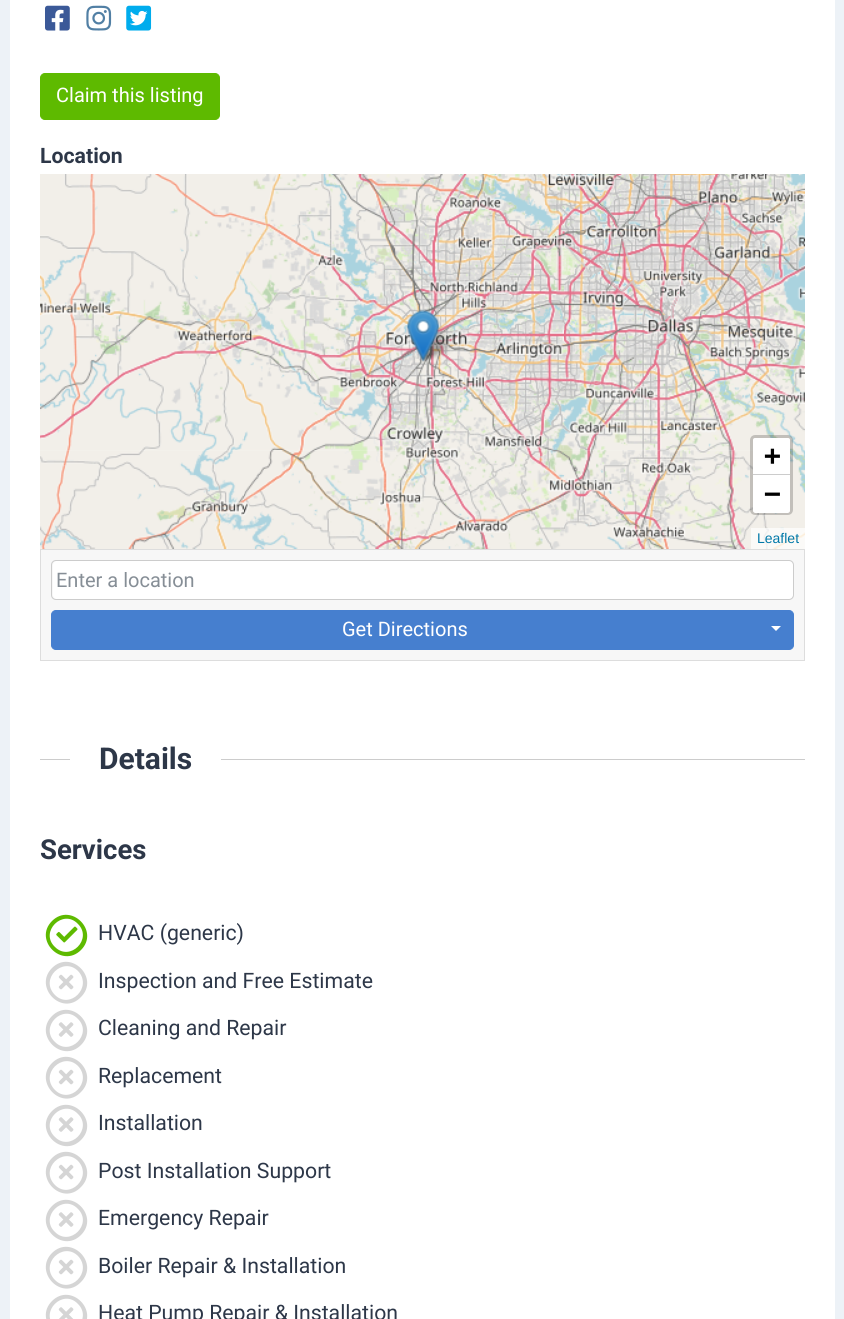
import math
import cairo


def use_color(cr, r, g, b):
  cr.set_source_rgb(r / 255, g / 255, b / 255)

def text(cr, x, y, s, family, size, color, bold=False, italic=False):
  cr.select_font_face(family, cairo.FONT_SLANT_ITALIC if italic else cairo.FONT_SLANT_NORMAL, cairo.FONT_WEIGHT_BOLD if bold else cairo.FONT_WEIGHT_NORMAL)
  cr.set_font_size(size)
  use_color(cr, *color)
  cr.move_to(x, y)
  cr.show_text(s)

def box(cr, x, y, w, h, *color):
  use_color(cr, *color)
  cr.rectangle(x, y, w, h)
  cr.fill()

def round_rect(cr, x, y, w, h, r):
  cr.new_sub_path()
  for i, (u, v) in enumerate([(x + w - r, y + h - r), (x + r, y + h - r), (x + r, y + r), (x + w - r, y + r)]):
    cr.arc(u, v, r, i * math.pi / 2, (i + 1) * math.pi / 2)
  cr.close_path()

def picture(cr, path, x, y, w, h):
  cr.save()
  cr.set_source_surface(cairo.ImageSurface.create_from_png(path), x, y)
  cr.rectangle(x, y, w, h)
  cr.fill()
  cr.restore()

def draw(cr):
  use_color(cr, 237, 242, 247)
  cr.paint()
  box(cr, 10, 0, 825, 1319, 255, 255, 255)
  picture(cr, "img_01.png", 45, 5, 25, 26)
  picture(cr, "img_02.png", 86, 5, 26, 26)
  picture(cr, "img_03.png", 126, 5, 26, 26)
  use_color(cr, 94, 186, 0)
  round_rect(cr, 40.5, 73.5, 179, 46, 4.5)
  cr.fill_preserve()
  cr.set_line_width(1)
  cr.stroke()
  picture(cr, "img_04.png", 40, 174, 204, 276)
  picture(cr, "img_05.png", 244, 174, 320, 276)
  picture(cr, "img_06.png", 564, 174, 241, 276)
  picture(cr, "img_07.png", 40, 450, 204, 99)
  picture(cr, "img_08.png", 244, 449, 320, 100)
  picture(cr, "img_09.png", 564, 450, 241, 99)
  picture(cr, "img_11.png", 418, 326, 38, 36)
  picture(cr, "img_10.png", 407, 309, 33, 53)
  round_rect(cr, 751.5, 436.5, 40, 77, 3.5)
  cr.set_source_rgba(0, 0, 0, 0.2)
  cr.set_line_width(3)
  cr.stroke()
  use_color(cr, 255, 255, 255)
  cr.new_path()
  cr.move_to(755.5, 438)
  cr.line_to(787.5, 438)
  cr.curve_to(789, 438, 790, 439, 790, 440.5)
  cr.line_to(790, 475)
  cr.line_to(753, 475)
  cr.line_to(753, 440.5)
  cr.curve_to(753, 439, 754, 438, 755.5, 438)
  cr.close_path()
  cr.fill()
  box(cr, 753, 474, 37, 1, 204, 204, 204)
  use_color(cr, 255, 255, 255)
  cr.new_path()
  cr.move_to(753, 475)
  cr.line_to(790, 475)
  cr.line_to(790, 510.5)
  cr.curve_to(790, 512, 789, 513, 787.5, 513)
  cr.line_to(755.5, 513)
  cr.curve_to(754, 513, 753, 512, 753, 510.5)
  cr.close_path()
  cr.fill()
  cr.set_source_rgba(1, 1, 1, 0.7)
  cr.rectangle(751, 528, 54, 21)
  cr.fill()
  use_color(cr, 247, 247, 247)
  cr.rectangle(40.5, 549.5, 764, 111)
  cr.fill_preserve()
  use_color(cr, 221, 221, 221)
  cr.set_line_width(1)
  cr.stroke()
  use_color(cr, 255, 255, 255)
  round_rect(cr, 53, 561, 740, 38, 4)
  cr.fill()
  round_rect(cr, 51.5, 560.5, 742, 39, 4.5)
  use_color(cr, 204, 204, 204)
  cr.stroke()
  use_color(cr, 70, 127, 207)
  cr.new_path()
  cr.move_to(56, 610.5)
  cr.line_to(758.5, 610.5)
  cr.line_to(758.5, 649.5)
  cr.line_to(56, 649.5)
  cr.curve_to(53.5, 649.5, 51.5, 647.5, 51.5, 645)
  cr.line_to(51.5, 615)
  cr.curve_to(51.5, 612.5, 53.5, 610.5, 56, 610.5)
  cr.close_path()
  cr.fill_preserve()
  cr.stroke()
  cr.new_path()
  cr.move_to(759.5, 610.5)
  cr.line_to(789, 610.5)
  cr.curve_to(791.5, 610.5, 793.5, 612.5, 793.5, 615)
  cr.line_to(793.5, 645)
  cr.curve_to(793.5, 647.5, 791.5, 649.5, 789, 649.5)
  cr.line_to(759.5, 649.5)
  cr.close_path()
  cr.fill_preserve()
  cr.stroke()
  use_color(cr, 255, 255, 255)
  cr.new_path()
  cr.move_to(771, 626)
  cr.line_to(781, 626)
  cr.line_to(776, 631)
  cr.close_path()
  cr.fill()
  box(cr, 40, 759, 765, 1, 204, 204, 204)
  box(cr, 70, 759, 151, 1, 255, 255, 255)
  use_color(cr, 94, 186, 0)
  cr.new_path()
  cr.move_to(52, 921)
  cr.curve_to(71, 902, 100, 931, 81, 950)
  cr.curve_to(62, 969, 33, 940, 52, 921)
  cr.close_path()
  cr.move_to(55, 947)
  cr.curve_to(70, 962, 93, 939, 78, 924)
  cr.curve_to(63, 908, 39, 932, 55, 947)
  cr.close_path()
  cr.fill()
  picture(cr, "img_12.png", 56, 926, 22, 17)
  use_color(cr, 213, 213, 213)
  cr.new_path()
  cr.move_to(52, 968)
  cr.curve_to(71, 949, 100, 978, 81, 997)
  cr.curve_to(62, 1017, 33, 987, 52, 968)
  cr.close_path()
  cr.move_to(55, 995)
  cr.curve_to(70, 1010, 93, 987, 78, 971)
  cr.curve_to(63, 956, 39, 979, 55, 995)
  cr.close_path()
  cr.fill()
  picture(cr, "img_13.png", 58, 974, 16, 16)
  cr.new_path()
  cr.move_to(52, 1016)
  cr.curve_to(71, 997, 100, 1026, 81, 1045)
  cr.curve_to(62, 1064, 33, 1035, 52, 1016)
  cr.close_path()
  cr.move_to(55, 1042)
  cr.curve_to(70, 1057, 93, 1034, 78, 1019)
  cr.curve_to(63, 1003, 39, 1027, 55, 1042)
  cr.close_path()
  cr.fill()
  picture(cr, "img_14.png", 58, 1022, 16, 15)
  cr.new_path()
  cr.move_to(52, 1063)
  cr.curve_to(71, 1044, 100, 1073, 81, 1092)
  cr.curve_to(62, 1112, 33, 1082, 52, 1063)
  cr.close_path()
  cr.move_to(55, 1090)
  cr.curve_to(70, 1105, 93, 1082, 78, 1066)
  cr.curve_to(63, 1051, 39, 1074, 55, 1090)
  cr.close_path()
  cr.fill()
  picture(cr, "img_13.png", 58, 1069, 16, 16)
  cr.new_path()
  cr.move_to(52, 1111)
  cr.curve_to(71, 1092, 100, 1121, 81, 1140)
  cr.curve_to(62, 1159, 33, 1130, 52, 1111)
  cr.close_path()
  cr.move_to(55, 1137)
  cr.curve_to(70, 1152, 93, 1129, 78, 1114)
  cr.curve_to(63, 1098, 39, 1122, 55, 1137)
  cr.close_path()
  cr.fill()
  picture(cr, "img_14.png", 58, 1117, 16, 15)
  cr.new_path()
  cr.move_to(52, 1158)
  cr.curve_to(71, 1139, 100, 1168, 81, 1187)
  cr.curve_to(62, 1207, 33, 1177, 52, 1158)
  cr.close_path()
  cr.move_to(55, 1185)
  cr.curve_to(70, 1200, 93, 1177, 78, 1161)
  cr.curve_to(63, 1146, 39, 1169, 55, 1185)
  cr.close_path()
  cr.fill()
  picture(cr, "img_13.png", 58, 1164, 16, 16)
  cr.new_path()
  cr.move_to(52, 1206)
  cr.curve_to(71, 1187, 100, 1216, 81, 1235)
  cr.curve_to(62, 1254, 33, 1225, 52, 1206)
  cr.close_path()
  cr.move_to(55, 1232)
  cr.curve_to(70, 1247, 93, 1224, 78, 1209)
  cr.curve_to(63, 1193, 39, 1217, 55, 1232)
  cr.close_path()
  cr.fill()
  picture(cr, "img_14.png", 58, 1212, 16, 15)
  cr.new_path()
  cr.move_to(52, 1253)
  cr.curve_to(71, 1234, 100, 1263, 81, 1282)
  cr.curve_to(62, 1302, 33, 1272, 52, 1253)
  cr.close_path()
  cr.move_to(55, 1280)
  cr.curve_to(70, 1295, 93, 1272, 78, 1256)
  cr.curve_to(63, 1241, 39, 1264, 55, 1280)
  cr.close_path()
  cr.fill()
  picture(cr, "img_13.png", 58, 1259, 16, 16)
  cr.new_path()
  cr.move_to(52, 1301)
  cr.curve_to(71, 1282, 100, 1311, 81, 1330)
  cr.curve_to(62, 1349, 33, 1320, 52, 1301)
  cr.close_path()
  cr.move_to(55, 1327)
  cr.curve_to(70, 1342, 93, 1319, 78, 1304)
  cr.curve_to(63, 1288, 39, 1312, 55, 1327)
  cr.close_path()
  cr.fill()
  picture(cr, "img_15.png", 58, 1307, 16, 12)
  text(cr, 56, 102, "Claim this listing", "Roboto", 20, (255, 255, 255))
  text(cr, 40, 163, "Location", "Roboto", 21.25, (45, 55, 72), bold=True)
  text(cr, 764, 465, "+", "DejaVu Sans Mono", 28, (0, 0, 0), bold=True)
  text(cr, 764, 503, "−", "DejaVu Sans Mono", 28, (0, 0, 0), bold=True)
  text(cr, 757, 543, "Leaflet", "Liberation Sans", 14, (0, 120, 168))
  text(cr, 56, 587, "Enter a location", "Roboto", 20, (134, 142, 150))
  text(cr, 342, 636, "Get Directions", "Roboto", 20, (255, 255, 255))
  text(cr, 99, 769, "Details", "Roboto", 30, (45, 55, 72), bold=True)
  text(cr, 40, 859, "Services", "Roboto", 27.5, (45, 55, 72), bold=True)
  text(cr, 98, 940, "HVAC (generic)", "Roboto", 21.25, (45, 55, 72))
  text(cr, 98, 988, "Inspection and Free Estimate", "Roboto", 21.25, (45, 55, 72))
  text(cr, 98, 1035, "Cleaning and Repair", "Roboto", 21.25, (45, 55, 72))
  text(cr, 98, 1083, "Replacement", "Roboto", 21.25, (45, 55, 72))
  text(cr, 98, 1130, "Installation", "Roboto", 21.25, (45, 55, 72))
  text(cr, 98, 1178, "Post Installation Support", "Roboto", 21.25, (45, 55, 72))
  text(cr, 98, 1225, "Emergency Repair", "Roboto", 21.25, (45, 55, 72))
  text(cr, 98, 1273, "Boiler Repair & Installation", "Roboto", 21.25, (45, 55, 72))
  text(cr, 98, 1320, "Heat Pump Repair & Installation", "Roboto", 21.25, (45, 55, 72))


surface = cairo.ImageSurface(cairo.FORMAT_RGB24, 844, 1319)
cr = cairo.Context(surface)
options = cairo.FontOptions()
options.set_hint_metrics(cairo.HINT_METRICS_OFF)
options.set_hint_style(cairo.HINT_STYLE_NONE)
cr.set_font_options(options)
cr.set_miter_limit(4)
draw(cr)
surface.write_to_png("out.png")
